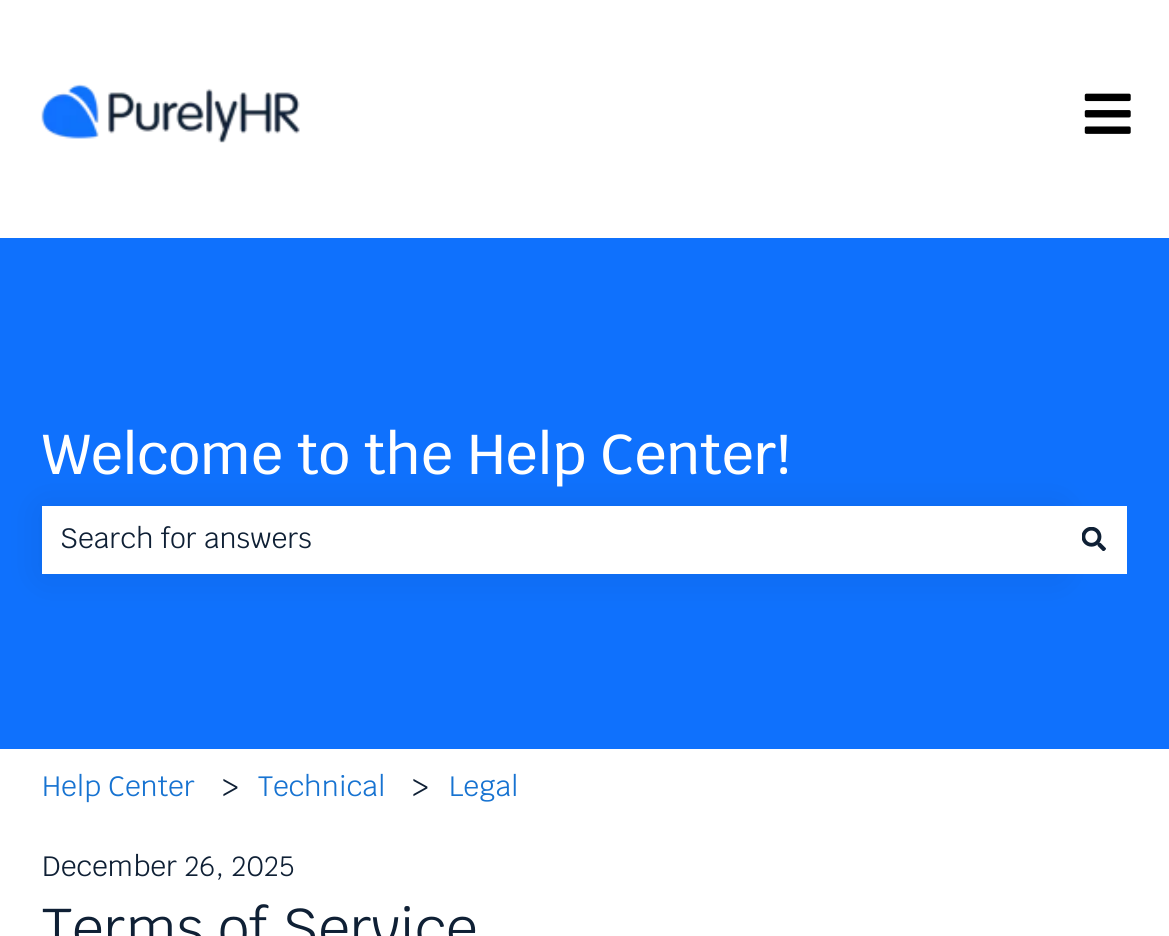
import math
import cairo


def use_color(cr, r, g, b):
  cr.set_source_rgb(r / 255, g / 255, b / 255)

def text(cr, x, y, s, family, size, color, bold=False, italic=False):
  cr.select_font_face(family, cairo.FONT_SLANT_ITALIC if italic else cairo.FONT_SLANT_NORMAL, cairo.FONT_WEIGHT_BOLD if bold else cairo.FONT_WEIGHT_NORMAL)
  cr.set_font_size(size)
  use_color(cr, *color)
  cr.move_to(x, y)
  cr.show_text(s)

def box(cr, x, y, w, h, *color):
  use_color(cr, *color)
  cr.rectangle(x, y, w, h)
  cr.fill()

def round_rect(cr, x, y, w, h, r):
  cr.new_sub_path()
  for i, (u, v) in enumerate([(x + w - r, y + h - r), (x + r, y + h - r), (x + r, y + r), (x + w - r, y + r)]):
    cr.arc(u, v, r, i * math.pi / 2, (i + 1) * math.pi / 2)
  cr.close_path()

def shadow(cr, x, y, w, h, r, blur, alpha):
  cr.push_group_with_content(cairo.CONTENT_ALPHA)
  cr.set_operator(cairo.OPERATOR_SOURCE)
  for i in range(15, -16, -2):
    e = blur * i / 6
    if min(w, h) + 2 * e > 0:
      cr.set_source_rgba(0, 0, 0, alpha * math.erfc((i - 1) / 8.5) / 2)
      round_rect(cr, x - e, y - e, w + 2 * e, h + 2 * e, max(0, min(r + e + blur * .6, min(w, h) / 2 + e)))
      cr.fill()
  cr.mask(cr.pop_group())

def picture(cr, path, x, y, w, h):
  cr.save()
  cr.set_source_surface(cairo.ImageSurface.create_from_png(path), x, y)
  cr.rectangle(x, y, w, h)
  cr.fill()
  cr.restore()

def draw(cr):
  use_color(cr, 255, 255, 255)
  cr.paint()
  picture(cr, "img_01.png", 41, 84, 259, 59)
  picture(cr, "img_02.png", 1084, 93, 47, 41)
  box(cr, 0, 238, 1169, 511, 15, 113, 253)
  use_color(cr, 0, 0, 0)
  shadow(cr, 42, 508, 1019, 68, 0, 21, 0.08)
  box(cr, 42, 506, 1085, 68, 255, 255, 255)
  picture(cr, "img_03.png", 1082, 527, 24, 24)
  text(cr, 42, 474, "Welcome to the Help Center!", "Krub Medium", 56, (255, 255, 255))
  text(cr, 60, 548, "Search for answers", "Krub", 28, (15, 32, 53))
  text(cr, 42, 796, "Help Center", "Krub", 28, (23, 115, 209))
  text(cr, 222, 796, ">", "Krub", 28, (15, 32, 53))
  text(cr, 258, 796, "Technical", "Krub", 28, (23, 115, 209))
  text(cr, 412, 796, ">", "Krub", 28, (15, 32, 53))
  text(cr, 449, 796, "Legal", "Krub", 28, (23, 115, 209))
  text(cr, 42, 876, "December 26, 2025", "Krub", 28, (15, 32, 53))
  text(cr, 42, 948, "Terms of Service", "Krub", 56, (15, 32, 53))


surface = cairo.ImageSurface(cairo.FORMAT_RGB24, 1169, 936)
cr = cairo.Context(surface)
options = cairo.FontOptions()
options.set_hint_metrics(cairo.HINT_METRICS_OFF)
options.set_hint_style(cairo.HINT_STYLE_NONE)
cr.set_font_options(options)
cr.set_miter_limit(4)
draw(cr)
surface.write_to_png("out.png")
